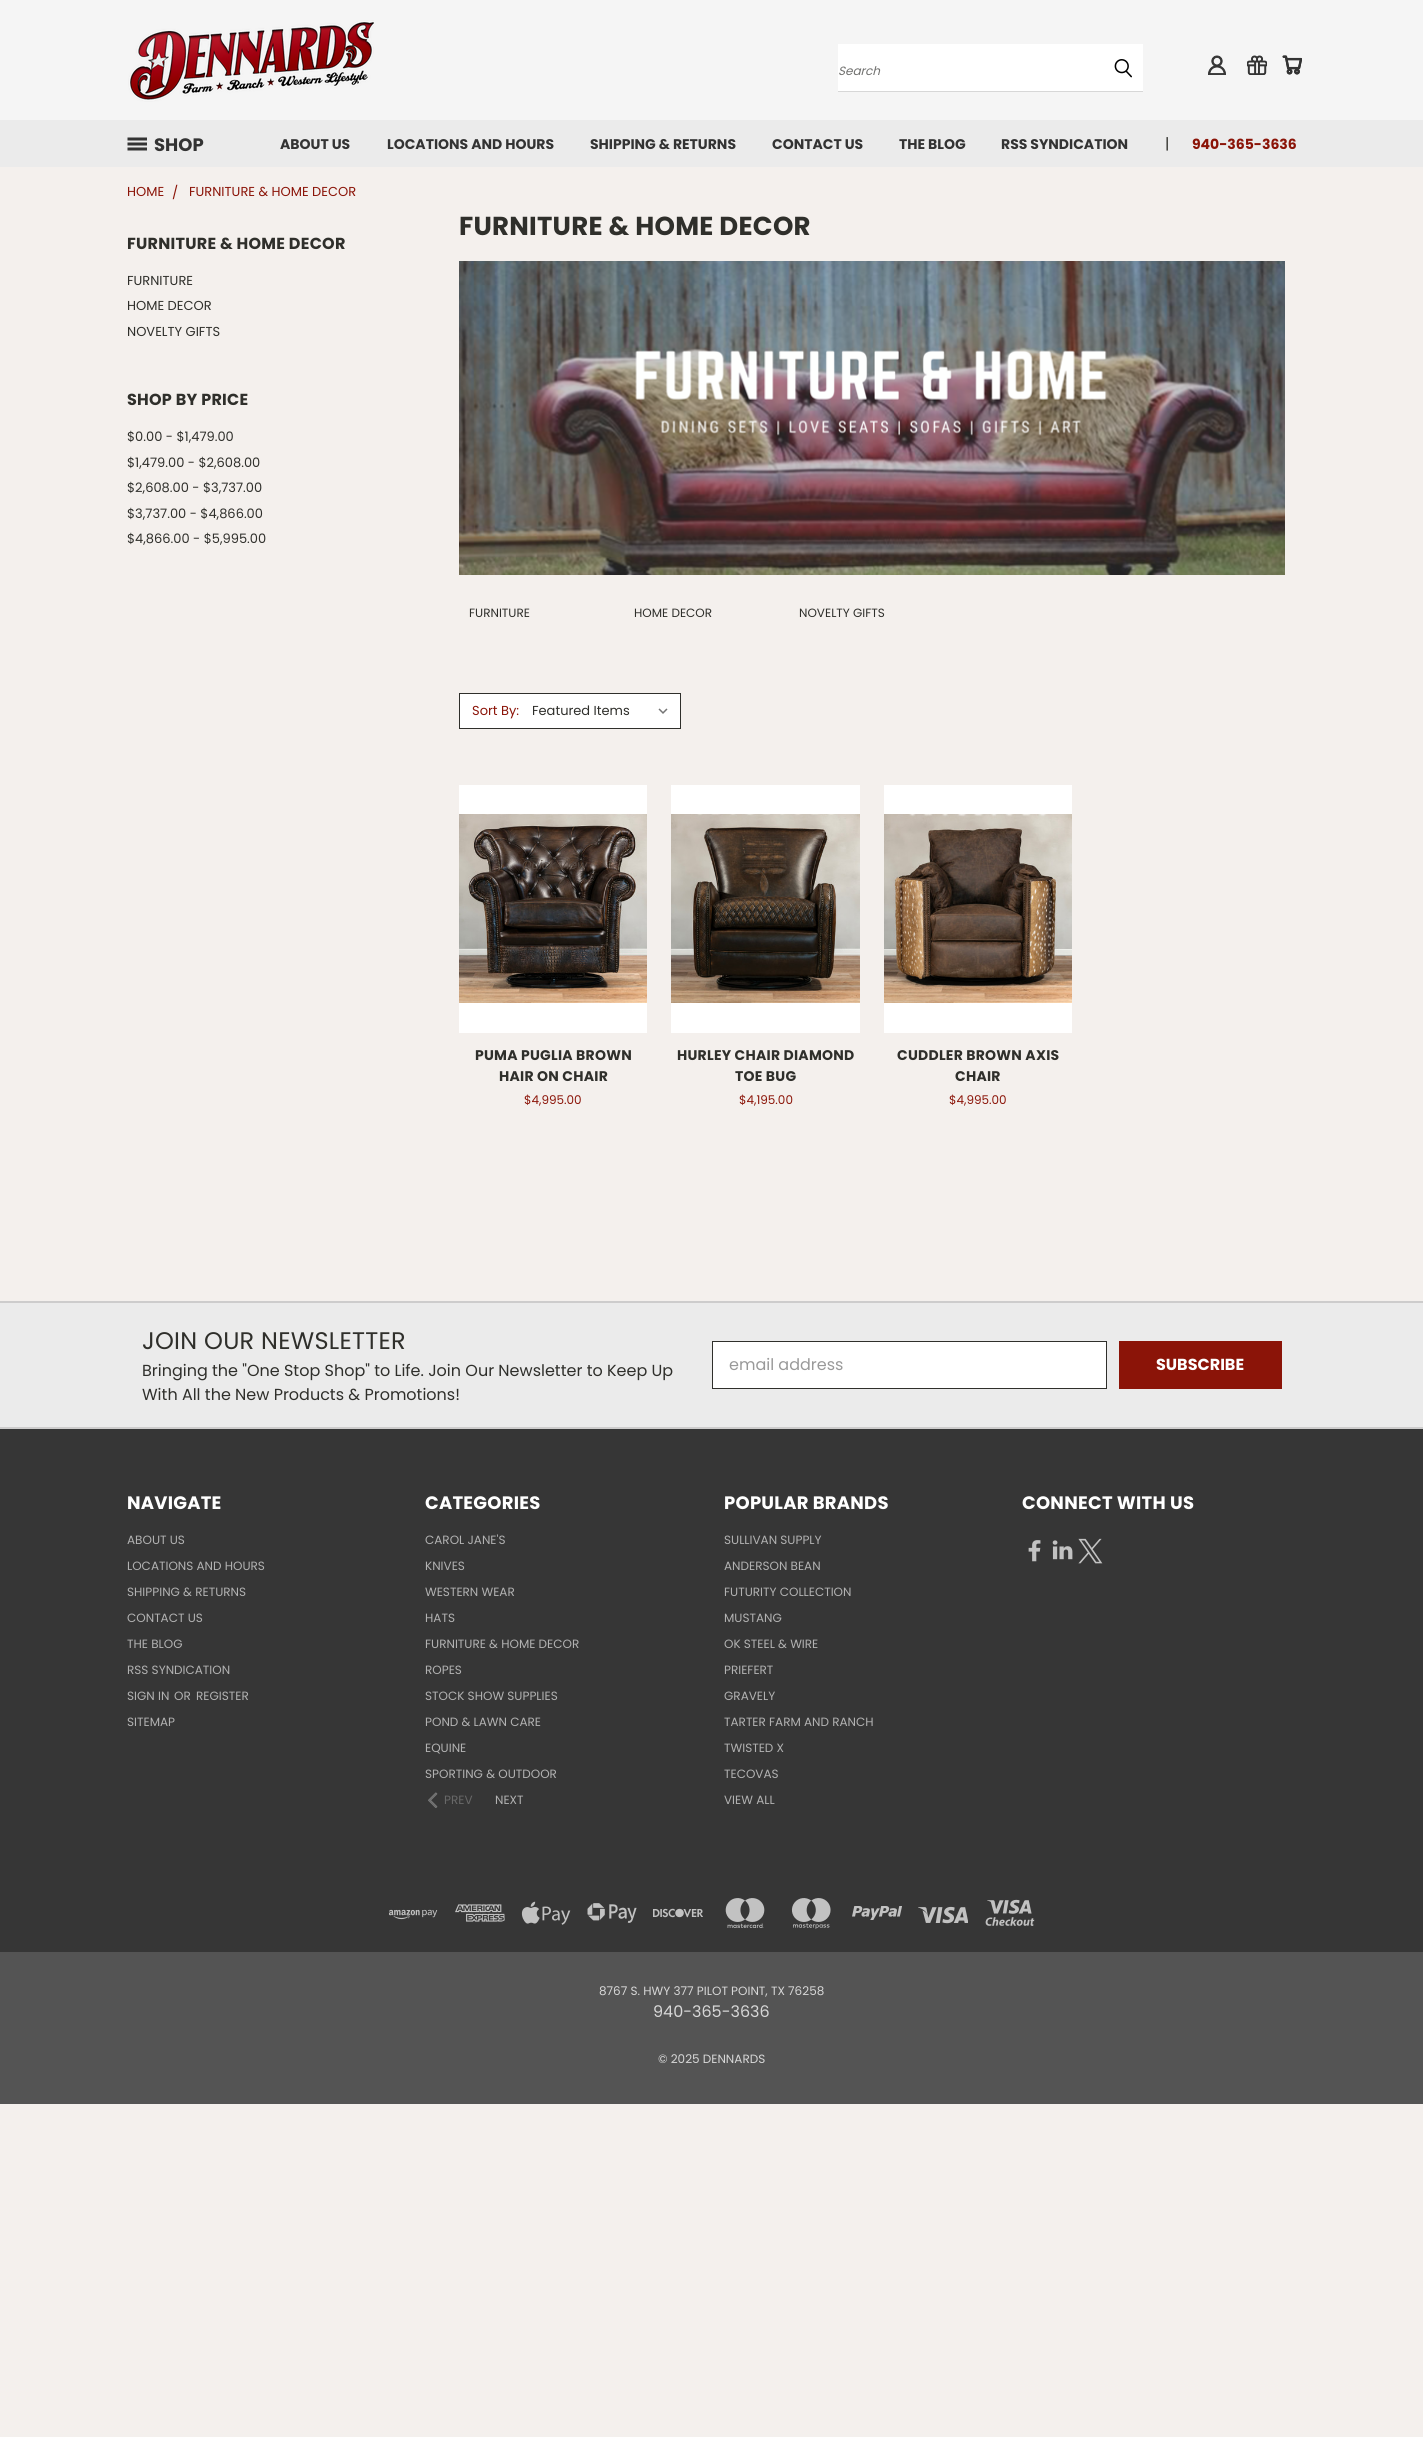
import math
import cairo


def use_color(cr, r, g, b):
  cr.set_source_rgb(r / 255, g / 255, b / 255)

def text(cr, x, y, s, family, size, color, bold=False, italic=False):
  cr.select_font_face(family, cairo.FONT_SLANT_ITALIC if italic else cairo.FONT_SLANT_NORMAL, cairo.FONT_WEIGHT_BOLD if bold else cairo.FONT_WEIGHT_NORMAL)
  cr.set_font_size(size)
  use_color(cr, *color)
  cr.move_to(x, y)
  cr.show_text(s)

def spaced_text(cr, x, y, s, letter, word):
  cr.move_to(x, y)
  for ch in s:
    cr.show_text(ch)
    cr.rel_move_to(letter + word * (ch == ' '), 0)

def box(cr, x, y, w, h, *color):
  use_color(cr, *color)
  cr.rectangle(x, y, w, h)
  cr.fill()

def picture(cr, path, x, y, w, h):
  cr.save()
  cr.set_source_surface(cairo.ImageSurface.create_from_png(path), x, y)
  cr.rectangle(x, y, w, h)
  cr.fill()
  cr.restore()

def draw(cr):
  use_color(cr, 244, 240, 237)
  cr.paint()
  box(cr, 0, 0, 1423, 120, 245, 245, 245)
  picture(cr, "img_01.png", 128, 20, 246, 82)
  box(cr, 838, 44, 305, 47, 255, 255, 255)
  box(cr, 838, 91, 305, 1, 215, 215, 215)
  picture(cr, "img_02.png", 1114, 59, 18, 19)
  picture(cr, "img_03.png", 1208, 55, 18, 20)
  picture(cr, "img_04.png", 1247, 55, 20, 20)
  picture(cr, "img_05.png", 1282, 55, 20, 20)
  box(cr, 0, 120, 1423, 47, 235, 235, 235)
  picture(cr, "img_06.png", 127, 137, 20, 14)
  picture(cr, "img_07.png", 459, 261, 826, 314)
  use_color(cr, 255, 255, 255)
  cr.rectangle(459.5, 693.5, 221, 35)
  cr.fill_preserve()
  use_color(cr, 47, 47, 43)
  cr.set_line_width(1)
  cr.stroke()
  picture(cr, "img_08.png", 658, 708, 10, 6)
  box(cr, 459, 785, 188, 248, 255, 255, 255)
  picture(cr, "img_09.png", 459, 814, 188, 189)
  box(cr, 671, 785, 189, 248, 255, 255, 255)
  picture(cr, "img_10.png", 671, 814, 189, 189)
  box(cr, 884, 785, 188, 248, 255, 255, 255)
  picture(cr, "img_11.png", 884, 814, 188, 189)
  box(cr, 0, 1303, 1423, 124, 235, 235, 235)
  box(cr, 0, 1301, 1423, 2, 205, 204, 204)
  use_color(cr, 255, 255, 255)
  cr.rectangle(712.5, 1341.5, 394, 47)
  cr.fill_preserve()
  use_color(cr, 47, 47, 43)
  cr.stroke()
  box(cr, 1119, 1341, 163, 48, 139, 20, 8)
  box(cr, 0, 1429, 1423, 523, 54, 54, 54)
  box(cr, 0, 1427, 1423, 2, 205, 204, 204)
  picture(cr, "img_12.png", 428, 1792, 10, 16)
  picture(cr, "img_13.png", 1028, 1540, 13, 22)
  picture(cr, "img_14.png", 1052, 1540, 21, 20)
  picture(cr, "img_15.png", 1078, 1538, 25, 26)
  picture(cr, "img_16.png", 389, 1909, 49, 11)
  picture(cr, "img_17.png", 455, 1904, 50, 18)
  picture(cr, "img_18.png", 521, 1901, 50, 24)
  picture(cr, "img_19.png", 587, 1903, 50, 20)
  picture(cr, "img_20.png", 653, 1908, 50, 10)
  picture(cr, "img_21.png", 725, 1898, 40, 30)
  picture(cr, "img_22.png", 791, 1898, 40, 31)
  picture(cr, "img_23.png", 852, 1906, 50, 14)
  picture(cr, "img_24.png", 918, 1906, 50, 18)
  picture(cr, "img_25.png", 985, 1899, 50, 27)
  box(cr, 0, 1952, 1423, 152, 84, 84, 84)
  text(cr, 838, 75, "Search", "Poppins", 12, (112, 112, 110), italic=True)
  text(cr, 154, 151, "SHOP", "Poppins", 18, (51, 51, 51), bold=True)
  text(cr, 280, 149, "ABOUT US", "Poppins", 14, (51, 51, 51), bold=True)
  text(cr, 387, 149, "LOCATIONS AND HOURS", "Poppins", 14, (51, 51, 51), bold=True)
  text(cr, 590, 149, "SHIPPING & RETURNS", "Poppins", 14, (51, 51, 51), bold=True)
  text(cr, 772, 149, "CONTACT US", "Poppins", 14, (51, 51, 51), bold=True)
  text(cr, 899, 149, "THE BLOG", "Poppins", 14, (51, 51, 51), bold=True)
  text(cr, 1001, 149, "RSS SYNDICATION", "Poppins", 14, (51, 51, 51), bold=True)
  text(cr, 1165, 149, "|", "Poppins", 15, (47, 47, 43))
  text(cr, 1192, 149, "940-365-3636", "Poppins", 14, (139, 20, 8), bold=True)
  text(cr, 127, 196, "HOME", "Poppins", 13, (139, 20, 8))
  text(cr, 172, 197, "/", "Poppins", 13, (139, 20, 8))
  text(cr, 189, 196, "FURNITURE & HOME DECOR", "Poppins", 13, (139, 20, 8))
  cr.select_font_face("Poppins", cairo.FONT_SLANT_NORMAL, cairo.FONT_WEIGHT_BOLD)
  cr.set_font_size(16)
  use_color(cr, 47, 47, 43)
  spaced_text(cr, 127, 249, "FURNITURE & HOME DECOR", 0.25, 0)
  text(cr, 127, 285, "FURNITURE", "Poppins", 13, (47, 47, 43))
  text(cr, 127, 310, "HOME DECOR", "Poppins", 13, (47, 47, 43))
  text(cr, 127, 336, "NOVELTY GIFTS", "Poppins", 13, (47, 47, 43))
  cr.select_font_face("Poppins", cairo.FONT_SLANT_NORMAL, cairo.FONT_WEIGHT_BOLD)
  cr.set_font_size(16)
  spaced_text(cr, 127, 405, "SHOP BY PRICE", 0.25, 0)
  text(cr, 127, 441, "$0.00 - $1,479.00", "Poppins", 13, (47, 47, 43))
  text(cr, 127, 467, "$1,479.00 - $2,608.00", "Poppins", 13, (47, 47, 43))
  text(cr, 127, 492, "$2,608.00 - $3,737.00", "Poppins", 13, (47, 47, 43))
  text(cr, 127, 518, "$3,737.00 - $4,866.00", "Poppins", 13, (47, 47, 43))
  text(cr, 127, 543, "$4,866.00 - $5,995.00", "Poppins", 13, (47, 47, 43))
  cr.select_font_face("Poppins", cairo.FONT_SLANT_NORMAL, cairo.FONT_WEIGHT_BOLD)
  cr.set_font_size(26)
  spaced_text(cr, 459, 235, "FURNITURE & HOME DECOR", 0.25, 0)
  text(cr, 469, 617, "FURNITURE", "Poppins", 12, (47, 47, 43))
  text(cr, 634, 617, "HOME DECOR", "Poppins", 12, (47, 47, 43))
  text(cr, 799, 617, "NOVELTY GIFTS", "Poppins", 12, (47, 47, 43))
  text(cr, 472, 715, "Sort By:", "Poppins", 13, (139, 20, 8))
  text(cr, 532, 715, "Featured Items", "Poppins", 13, (47, 47, 43))
  text(cr, 521, 869, "Quick View", "Poppins", 12, (85, 73, 66), italic=True)
  text(cr, 545, 952, "T", "Poppins", 12, (56, 48, 44), italic=True)
  cr.select_font_face("Poppins", cairo.FONT_SLANT_NORMAL, cairo.FONT_WEIGHT_BOLD)
  cr.set_font_size(14)
  use_color(cr, 47, 47, 43)
  spaced_text(cr, 475, 1060, "PUMA PUGLIA BROWN", 0.25, 0)
  spaced_text(cr, 499, 1081, "HAIR ON CHAIR", 0.25, 0)
  text(cr, 524, 1104, "$4,995.00", "Poppins", 12, (139, 20, 8))
  cr.select_font_face("Poppins", cairo.FONT_SLANT_NORMAL, cairo.FONT_WEIGHT_BOLD)
  cr.set_font_size(14)
  use_color(cr, 47, 47, 43)
  spaced_text(cr, 677, 1060, "HURLEY CHAIR DIAMOND", 0.25, 0)
  spaced_text(cr, 735, 1081, "TOE BUG", 0.25, 0)
  text(cr, 739, 1104, "$4,195.00", "Poppins", 12, (139, 20, 8))
  cr.select_font_face("Poppins", cairo.FONT_SLANT_NORMAL, cairo.FONT_WEIGHT_BOLD)
  cr.set_font_size(14)
  use_color(cr, 47, 47, 43)
  spaced_text(cr, 897, 1060, "CUDDLER BROWN AXIS", 0.25, 0)
  spaced_text(cr, 955, 1081, "CHAIR", 0.25, 0)
  text(cr, 949, 1104, "$4,995.00", "Poppins", 12, (139, 20, 8))
  cr.set_font_size(24)
  use_color(cr, 47, 47, 43)
  spaced_text(cr, 142, 1349, "JOIN OUR NEWSLETTER", 0.25, 0)
  text(cr, 142, 1376, "Bringing the \"One Stop Shop\" to Life. Join Our Newsletter to Keep Up", "Poppins", 16, (47, 47, 43))
  text(cr, 142, 1400, "With All the New Products & Promotions!", "Poppins", 16, (47, 47, 43))
  text(cr, 729, 1370, "email address", "Poppins", 16, (153, 153, 153))
  text(cr, 1156, 1370, "SUBSCRIBE", "Poppins", 16, (255, 255, 255), bold=True)
  cr.set_font_size(18)
  spaced_text(cr, 127, 1509, "NAVIGATE", 0.25, 0)
  text(cr, 127, 1544, "ABOUT US", "Poppins", 12, (178, 178, 178))
  text(cr, 127, 1570, "LOCATIONS AND HOURS", "Poppins", 12, (178, 178, 178))
  text(cr, 127, 1596, "SHIPPING & RETURNS", "Poppins", 12, (178, 178, 178))
  text(cr, 127, 1622, "CONTACT US", "Poppins", 12, (178, 178, 178))
  text(cr, 127, 1648, "THE BLOG", "Poppins", 12, (178, 178, 178))
  text(cr, 127, 1674, "RSS SYNDICATION", "Poppins", 12, (178, 178, 178))
  text(cr, 127, 1700, "SIGN IN", "Poppins", 12, (178, 178, 178))
  text(cr, 174, 1700, "OR", "Poppins", 12, (178, 178, 178))
  text(cr, 196, 1700, "REGISTER", "Poppins", 12, (178, 178, 178))
  text(cr, 127, 1726, "SITEMAP", "Poppins", 12, (178, 178, 178))
  cr.select_font_face("Poppins", cairo.FONT_SLANT_NORMAL, cairo.FONT_WEIGHT_BOLD)
  cr.set_font_size(18)
  use_color(cr, 255, 255, 255)
  spaced_text(cr, 425, 1509, "CATEGORIES", 0.25, 0)
  text(cr, 425, 1544, "CAROL JANE'S", "Poppins", 12, (178, 178, 178))
  text(cr, 425, 1570, "KNIVES", "Poppins", 12, (178, 178, 178))
  text(cr, 425, 1596, "WESTERN WEAR", "Poppins", 12, (178, 178, 178))
  text(cr, 425, 1622, "HATS", "Poppins", 12, (178, 178, 178))
  text(cr, 425, 1648, "FURNITURE & HOME DECOR", "Poppins", 12, (178, 178, 178))
  text(cr, 425, 1674, "ROPES", "Poppins", 12, (178, 178, 178))
  text(cr, 425, 1700, "STOCK SHOW SUPPLIES", "Poppins", 12, (178, 178, 178))
  text(cr, 425, 1726, "POND & LAWN CARE", "Poppins", 12, (178, 178, 178))
  text(cr, 425, 1752, "EQUINE", "Poppins", 12, (178, 178, 178))
  text(cr, 425, 1778, "SPORTING & OUTDOOR", "Poppins", 12, (178, 178, 178))
  text(cr, 444, 1804, "PREV", "Poppins", 12, (104, 104, 104))
  text(cr, 495, 1804, "NEXT", "Poppins", 12, (178, 178, 178))
  cr.select_font_face("Poppins", cairo.FONT_SLANT_NORMAL, cairo.FONT_WEIGHT_BOLD)
  cr.set_font_size(18)
  use_color(cr, 255, 255, 255)
  spaced_text(cr, 724, 1509, "POPULAR BRANDS", 0.25, 0)
  text(cr, 724, 1544, "SULLIVAN SUPPLY", "Poppins", 12, (178, 178, 178))
  text(cr, 724, 1570, "ANDERSON BEAN", "Poppins", 12, (178, 178, 178))
  text(cr, 724, 1596, "FUTURITY COLLECTION", "Poppins", 12, (178, 178, 178))
  text(cr, 724, 1622, "MUSTANG", "Poppins", 12, (178, 178, 178))
  text(cr, 724, 1648, "OK STEEL & WIRE", "Poppins", 12, (178, 178, 178))
  text(cr, 724, 1674, "PRIEFERT", "Poppins", 12, (178, 178, 178))
  text(cr, 724, 1700, "GRAVELY", "Poppins", 12, (178, 178, 178))
  text(cr, 724, 1726, "TARTER FARM AND RANCH", "Poppins", 12, (178, 178, 178))
  text(cr, 724, 1752, "TWISTED X", "Poppins", 12, (178, 178, 178))
  text(cr, 724, 1778, "TECOVAS", "Poppins", 12, (178, 178, 178))
  text(cr, 724, 1804, "VIEW ALL", "Poppins", 12, (178, 178, 178))
  cr.select_font_face("Poppins", cairo.FONT_SLANT_NORMAL, cairo.FONT_WEIGHT_BOLD)
  cr.set_font_size(18)
  use_color(cr, 255, 255, 255)
  spaced_text(cr, 1022, 1509, "CONNECT WITH US", 0.25, 0)
  text(cr, 599, 1995, "8767 S. HWY 377 PILOT POINT, TX 76258", "Poppins", 12, (215, 215, 215))
  text(cr, 653, 2017, "940-365-3636", "Poppins", 16, (215, 215, 215))
  text(cr, 658, 2063, "© 2025 DENNARDS", "Poppins", 12, (215, 215, 215))


surface = cairo.ImageSurface(cairo.FORMAT_RGB24, 1423, 2437)
cr = cairo.Context(surface)
options = cairo.FontOptions()
options.set_hint_metrics(cairo.HINT_METRICS_OFF)
options.set_hint_style(cairo.HINT_STYLE_NONE)
cr.set_font_options(options)
cr.set_miter_limit(4)
draw(cr)
surface.write_to_png("out.png")
